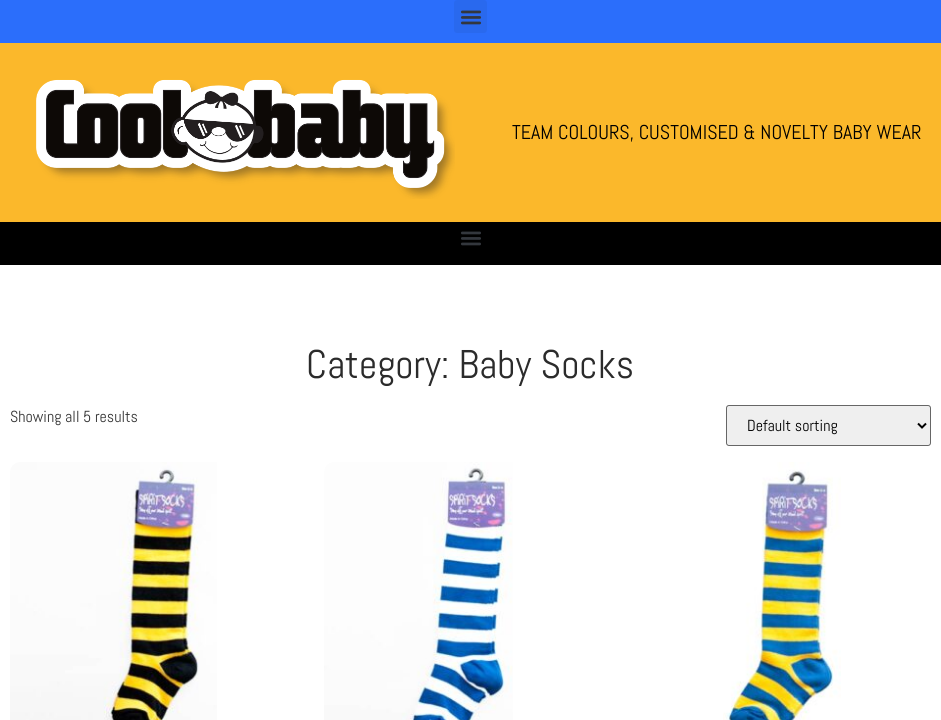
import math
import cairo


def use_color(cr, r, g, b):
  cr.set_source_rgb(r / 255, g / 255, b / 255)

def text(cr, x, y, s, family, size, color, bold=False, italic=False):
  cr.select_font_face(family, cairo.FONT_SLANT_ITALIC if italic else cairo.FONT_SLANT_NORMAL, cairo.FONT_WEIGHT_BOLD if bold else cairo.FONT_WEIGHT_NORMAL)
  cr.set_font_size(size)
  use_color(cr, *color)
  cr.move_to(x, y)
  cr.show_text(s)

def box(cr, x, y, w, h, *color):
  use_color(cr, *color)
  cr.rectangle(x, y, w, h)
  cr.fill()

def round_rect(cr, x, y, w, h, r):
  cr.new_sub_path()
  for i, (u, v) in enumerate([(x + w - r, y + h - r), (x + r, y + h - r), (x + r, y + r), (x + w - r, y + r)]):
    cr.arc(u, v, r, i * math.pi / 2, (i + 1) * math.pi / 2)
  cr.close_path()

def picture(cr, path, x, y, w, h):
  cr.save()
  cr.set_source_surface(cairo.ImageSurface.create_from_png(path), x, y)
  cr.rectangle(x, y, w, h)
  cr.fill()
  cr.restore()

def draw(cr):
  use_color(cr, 255, 255, 255)
  cr.paint()
  box(cr, 0, 0, 941, 43, 43, 110, 251)
  use_color(cr, 41, 105, 238)
  round_rect(cr, 454, 0, 33, 33, 3)
  cr.fill()
  picture(cr, "img_01.png", 460, 10, 22, 15)
  box(cr, 0, 43, 941, 179, 251, 184, 43)
  picture(cr, "img_02.png", 36, 79, 419, 120)
  box(cr, 0, 222, 941, 43, 0, 0, 0)
  picture(cr, "img_03.png", 461, 231, 20, 15)
  use_color(cr, 239, 239, 239)
  round_rect(cr, 726.5, 405.5, 204, 40, 2.5)
  cr.fill_preserve()
  use_color(cr, 102, 102, 102)
  cr.set_line_width(1)
  cr.stroke()
  cr.new_path()
  cr.move_to(918, 423.5)
  cr.line_to(922, 427.5)
  cr.line_to(926, 423.5)
  use_color(cr, 0, 0, 0)
  cr.set_line_width(2)
  cr.stroke()
  picture(cr, "img_04.png", 10, 462, 207, 258)
  picture(cr, "img_05.png", 324, 462, 189, 258)
  picture(cr, "img_06.png", 723, 462, 118, 258)
  text(cr, 512, 139, "TEAM COLOURS, CUSTOMISED & NOVELTY BABY WEAR", "Abel", 20, (0, 0, 0))
  text(cr, 306, 378, "Category: Baby Socks", "Abel", 40, (43, 43, 43))
  text(cr, 10, 422, "Showing all 5 results", "Abel", 16, (51, 51, 51))
  text(cr, 747, 431, "Default sorting", "Abel", 16, (0, 0, 0))


surface = cairo.ImageSurface(cairo.FORMAT_RGB24, 941, 720)
cr = cairo.Context(surface)
options = cairo.FontOptions()
options.set_hint_metrics(cairo.HINT_METRICS_OFF)
options.set_hint_style(cairo.HINT_STYLE_NONE)
cr.set_font_options(options)
cr.set_miter_limit(4)
draw(cr)
surface.write_to_png("out.png")
